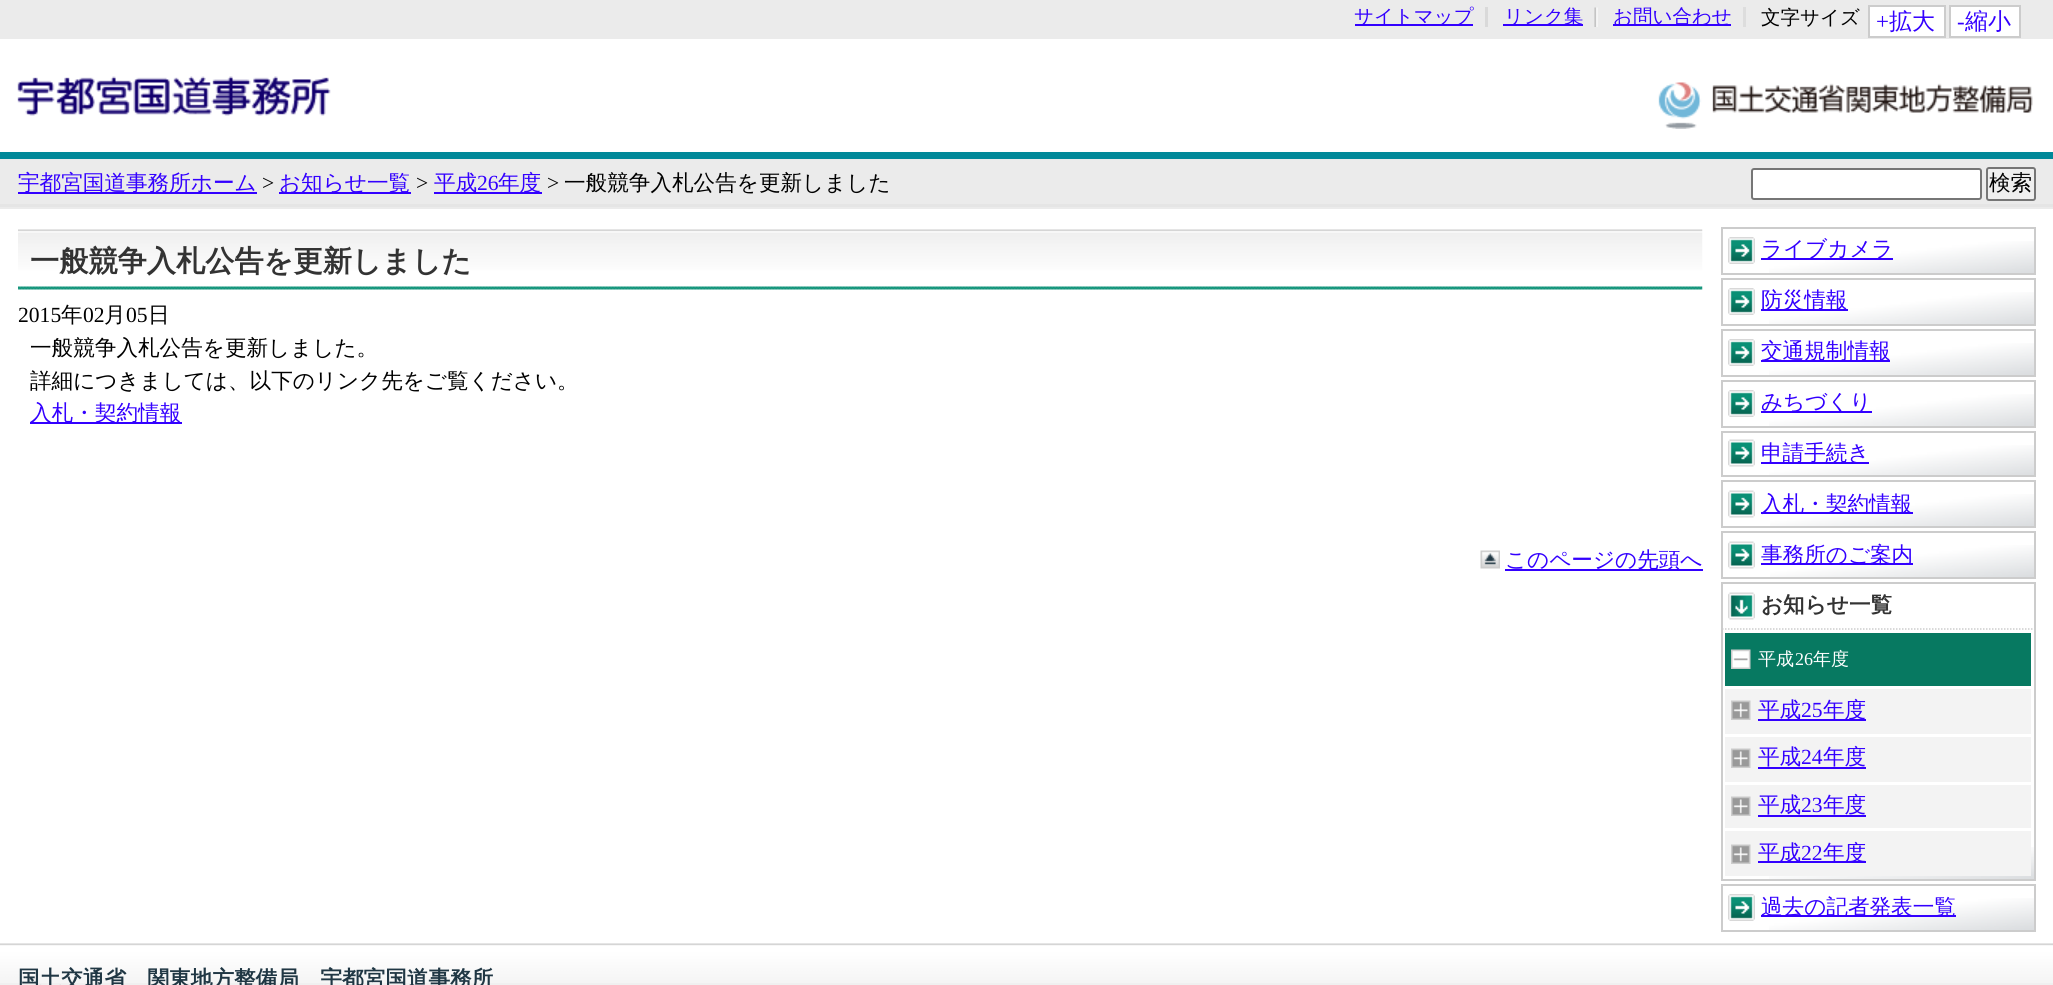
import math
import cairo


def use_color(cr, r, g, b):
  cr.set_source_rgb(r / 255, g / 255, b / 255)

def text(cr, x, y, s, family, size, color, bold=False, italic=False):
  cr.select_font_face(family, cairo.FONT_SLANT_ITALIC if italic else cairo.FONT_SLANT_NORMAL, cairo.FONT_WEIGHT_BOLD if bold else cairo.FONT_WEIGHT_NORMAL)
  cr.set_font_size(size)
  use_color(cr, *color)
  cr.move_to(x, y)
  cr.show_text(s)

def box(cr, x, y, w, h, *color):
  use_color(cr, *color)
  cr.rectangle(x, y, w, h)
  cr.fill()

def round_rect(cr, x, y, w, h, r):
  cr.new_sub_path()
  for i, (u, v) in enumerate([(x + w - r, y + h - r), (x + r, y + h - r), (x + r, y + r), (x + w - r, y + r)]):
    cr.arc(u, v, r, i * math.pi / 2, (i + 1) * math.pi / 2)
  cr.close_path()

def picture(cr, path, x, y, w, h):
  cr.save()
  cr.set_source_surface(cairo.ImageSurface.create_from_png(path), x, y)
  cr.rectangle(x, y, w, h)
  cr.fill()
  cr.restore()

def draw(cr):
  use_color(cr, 255, 255, 255)
  cr.paint()
  box(cr, 0, 152, 2053, 7, 0, 136, 153)
  box(cr, 0, 0, 2053, 39, 235, 235, 235)
  box(cr, 1485, 7, 3, 20, 217, 217, 217)
  box(cr, 1355, 24, 118, 2, 51, 0, 255)
  picture(cr, "img_01.png", 1594, 7, 4, 20)
  box(cr, 1503, 24, 80, 2, 51, 0, 255)
  box(cr, 1743, 7, 3, 20, 221, 221, 221)
  box(cr, 1613, 24, 118, 2, 51, 0, 255)
  use_color(cr, 255, 255, 255)
  cr.rectangle(1869, 6, 76, 31)
  cr.fill_preserve()
  use_color(cr, 204, 204, 204)
  cr.stroke()
  use_color(cr, 255, 255, 255)
  cr.rectangle(1950, 6, 70, 31)
  cr.fill_preserve()
  use_color(cr, 204, 204, 204)
  cr.stroke()
  picture(cr, "img_02.png", 17, 76, 314, 40)
  picture(cr, "img_03.png", 1658, 82, 375, 47)
  box(cr, 0, 159, 2053, 50, 235, 235, 235)
  box(cr, 0, 204, 2053, 3, 229, 229, 229)
  box(cr, 18, 192, 239, 2, 51, 0, 255)
  box(cr, 279, 192, 132, 2, 51, 0, 255)
  box(cr, 434, 192, 108, 2, 51, 0, 255)
  use_color(cr, 255, 255, 255)
  round_rect(cr, 1752, 169, 229, 30, 2)
  cr.fill_preserve()
  use_color(cr, 118, 118, 118)
  cr.stroke()
  use_color(cr, 239, 239, 239)
  round_rect(cr, 1987, 168, 48, 32, 2)
  cr.fill_preserve()
  use_color(cr, 118, 118, 118)
  cr.stroke()
  picture(cr, "img_04.png", 18, 229, 1685, 61)
  box(cr, 30, 422, 152, 2, 51, 0, 255)
  picture(cr, "img_05.png", 1480, 550, 20, 19)
  box(cr, 1505, 569, 198, 2, 51, 0, 255)
  picture(cr, "img_06.png", 1769, 241, 265, 32)
  cr.rectangle(1722, 228, 313, 46)
  use_color(cr, 204, 204, 204)
  cr.stroke()
  picture(cr, "img_07.png", 1728, 237, 27, 27)
  box(cr, 1761, 258, 132, 2, 51, 0, 255)
  picture(cr, "img_06.png", 1769, 292, 265, 32)
  cr.rectangle(1722, 279, 313, 46)
  use_color(cr, 204, 204, 204)
  cr.stroke()
  picture(cr, "img_07.png", 1728, 288, 27, 27)
  box(cr, 1761, 309, 87, 2, 51, 0, 255)
  picture(cr, "img_06.png", 1769, 343, 265, 32)
  cr.rectangle(1722, 330, 313, 46)
  use_color(cr, 204, 204, 204)
  cr.stroke()
  picture(cr, "img_07.png", 1728, 339, 27, 27)
  box(cr, 1761, 360, 129, 2, 51, 0, 255)
  picture(cr, "img_06.png", 1769, 394, 265, 32)
  cr.rectangle(1722, 381, 313, 46)
  use_color(cr, 204, 204, 204)
  cr.stroke()
  picture(cr, "img_07.png", 1728, 390, 27, 27)
  box(cr, 1761, 411, 111, 2, 51, 0, 255)
  picture(cr, "img_08.png", 1769, 445, 265, 30)
  cr.rectangle(1722, 432, 313, 44)
  use_color(cr, 204, 204, 204)
  cr.stroke()
  picture(cr, "img_09.png", 1728, 439, 27, 28)
  box(cr, 1761, 462, 108, 2, 51, 0, 255)
  picture(cr, "img_10.png", 1770, 494, 264, 32)
  cr.rectangle(1722, 481, 313, 46)
  use_color(cr, 204, 204, 204)
  cr.stroke()
  picture(cr, "img_09.png", 1728, 490, 27, 28)
  box(cr, 1761, 512, 152, 2, 51, 0, 255)
  picture(cr, "img_10.png", 1770, 545, 264, 32)
  cr.rectangle(1722, 532, 313, 46)
  use_color(cr, 204, 204, 204)
  cr.stroke()
  picture(cr, "img_09.png", 1728, 541, 27, 28)
  box(cr, 1761, 563, 152, 2, 51, 0, 255)
  picture(cr, "img_11.png", 1769, 847, 265, 32)
  cr.rectangle(1722, 583, 313, 297)
  use_color(cr, 204, 204, 204)
  cr.stroke()
  picture(cr, "img_12.png", 1728, 592, 27, 28)
  cr.new_path()
  cr.move_to(1722, 629)
  cr.line_to(2034, 629)
  cr.set_line_width(1.5)
  cr.set_dash([1.5, 1.5])
  cr.stroke()
  box(cr, 1725, 633, 306, 53, 7, 121, 97)
  picture(cr, "img_13.png", 1731, 649, 20, 20)
  box(cr, 1725, 689, 306, 45, 243, 243, 243)
  picture(cr, "img_14.png", 1731, 700, 20, 20)
  box(cr, 1758, 719, 108, 2, 51, 0, 255)
  box(cr, 1725, 737, 306, 45, 243, 243, 243)
  picture(cr, "img_14.png", 1731, 748, 20, 20)
  box(cr, 1758, 767, 108, 2, 51, 0, 255)
  box(cr, 1725, 785, 306, 43, 243, 243, 243)
  picture(cr, "img_14.png", 1731, 796, 20, 20)
  box(cr, 1758, 815, 108, 2, 51, 0, 255)
  box(cr, 1725, 831, 306, 45, 243, 243, 243)
  picture(cr, "img_14.png", 1731, 844, 20, 20)
  box(cr, 1758, 861, 108, 2, 51, 0, 255)
  picture(cr, "img_06.png", 1769, 898, 265, 32)
  cr.rectangle(1722, 885, 313, 46)
  use_color(cr, 204, 204, 204)
  cr.set_line_width(2)
  cr.set_dash([])
  cr.stroke()
  picture(cr, "img_07.png", 1728, 894, 27, 27)
  box(cr, 1761, 915, 195, 2, 51, 0, 255)
  box(cr, 0, 983, 2053, 2, 240, 240, 240)
  picture(cr, "img_15.png", 0, 943, 2053, 40)
  text(cr, 1354, 23, "サイトマップ", "WenQuanYi Zen Hei Medium", 19.5, (51, 0, 255))
  text(cr, 1504, 23, "リンク集", "WenQuanYi Zen Hei Medium", 19.5, (51, 0, 255))
  text(cr, 1613, 23, "お問い合わせ", "WenQuanYi Zen Hei Medium", 19.5, (51, 0, 255))
  text(cr, 1761, 24, "文字サイズ", "WenQuanYi Zen Hei Medium", 19.5, (0, 0, 0))
  text(cr, 1876, 29, "+", "Liberation Serif", 23, (51, 0, 255))
  text(cr, 1889, 29, "拡大", "WenQuanYi Zen Hei Medium", 23, (51, 0, 255))
  text(cr, 1957, 29, "-", "Liberation Serif", 23, (51, 0, 255))
  text(cr, 1965, 29, "縮小", "WenQuanYi Zen Hei Medium", 23, (51, 0, 255))
  text(cr, 18, 190, "宇都宮国道事務所ホーム", "WenQuanYi Zen Hei Medium", 21.6, (51, 0, 255))
  text(cr, 262, 190, ">", "Liberation Serif", 21.6, (0, 0, 0))
  text(cr, 279, 190, "お知らせ一覧", "WenQuanYi Zen Hei Medium", 21.6, (51, 0, 255))
  text(cr, 416, 190, ">", "Liberation Serif", 21.6, (0, 0, 0))
  text(cr, 434, 190, "平成", "WenQuanYi Zen Hei Medium", 21.6, (51, 0, 255))
  text(cr, 477, 190, "26", "Liberation Serif", 21.6, (51, 0, 255))
  text(cr, 498, 190, "年度", "WenQuanYi Zen Hei Medium", 21.6, (51, 0, 255))
  text(cr, 547, 190, ">", "Liberation Serif", 21.6, (0, 0, 0))
  text(cr, 564, 190, "一般競争入札公告を更新しました", "WenQuanYi Zen Hei Medium", 21.6, (0, 0, 0))
  text(cr, 1989, 190, "検索", "WenQuanYi Zen Hei Medium", 21.6, (0, 0, 0))
  text(cr, 30, 271, "一般競争入札公告を更新しました", "WenQuanYi Zen Hei", 29.2, (51, 51, 51), bold=True)
  text(cr, 18, 322, "2015", "Liberation Serif", 21.6, (0, 0, 0))
  text(cr, 61, 322, "年", "WenQuanYi Zen Hei Medium", 21.6, (0, 0, 0))
  text(cr, 83, 322, "02", "Liberation Serif", 21.6, (0, 0, 0))
  text(cr, 104, 322, "月", "WenQuanYi Zen Hei Medium", 21.6, (0, 0, 0))
  text(cr, 126, 322, "05", "Liberation Serif", 21.6, (0, 0, 0))
  text(cr, 148, 322, "日", "WenQuanYi Zen Hei Medium", 21.6, (0, 0, 0))
  text(cr, 30, 355, "一般競争入札公告を更新しました。", "WenQuanYi Zen Hei Medium", 21.6, (0, 0, 0))
  text(cr, 30, 388, "詳細につきましては、以下のリンク先をご覧ください。", "WenQuanYi Zen Hei Medium", 21.6, (0, 0, 0))
  text(cr, 30, 420, "入札・契約情報", "WenQuanYi Zen Hei Medium", 21.6, (51, 0, 255))
  text(cr, 1505, 567, "このページの先頭へ", "WenQuanYi Zen Hei Medium", 21.6, (51, 0, 255))
  text(cr, 1761, 256, "ライブカメラ", "WenQuanYi Zen Hei Medium", 21.6, (51, 0, 255))
  text(cr, 1761, 307, "防災情報", "WenQuanYi Zen Hei Medium", 21.6, (51, 0, 255))
  text(cr, 1761, 358, "交通規制情報", "WenQuanYi Zen Hei Medium", 21.6, (51, 0, 255))
  text(cr, 1761, 409, "みちづくり", "WenQuanYi Zen Hei Medium", 21.6, (51, 0, 255))
  text(cr, 1761, 460, "申請手続き", "WenQuanYi Zen Hei Medium", 21.6, (51, 0, 255))
  text(cr, 1761, 511, "入札・契約情報", "WenQuanYi Zen Hei Medium", 21.6, (51, 0, 255))
  text(cr, 1761, 562, "事務所のご案内", "WenQuanYi Zen Hei Medium", 21.6, (51, 0, 255))
  text(cr, 1761, 612, "お知らせ一覧", "WenQuanYi Zen Hei", 21.6, (51, 51, 51), bold=True)
  text(cr, 1758, 665, "平成", "WenQuanYi Zen Hei Medium", 18, (255, 255, 255))
  text(cr, 1795, 665, "26", "Liberation Serif", 18, (255, 255, 255))
  text(cr, 1813, 665, "年度", "WenQuanYi Zen Hei Medium", 18, (255, 255, 255))
  text(cr, 1758, 717, "平成", "WenQuanYi Zen Hei Medium", 21.6, (51, 0, 255))
  text(cr, 1801, 717, "25", "Liberation Serif", 21.6, (51, 0, 255))
  text(cr, 1823, 717, "年度", "WenQuanYi Zen Hei Medium", 21.6, (51, 0, 255))
  text(cr, 1758, 764, "平成", "WenQuanYi Zen Hei Medium", 21.6, (51, 0, 255))
  text(cr, 1801, 764, "24", "Liberation Serif", 21.6, (51, 0, 255))
  text(cr, 1823, 764, "年度", "WenQuanYi Zen Hei Medium", 21.6, (51, 0, 255))
  text(cr, 1758, 812, "平成", "WenQuanYi Zen Hei Medium", 21.6, (51, 0, 255))
  text(cr, 1801, 812, "23", "Liberation Serif", 21.6, (51, 0, 255))
  text(cr, 1823, 812, "年度", "WenQuanYi Zen Hei Medium", 21.6, (51, 0, 255))
  text(cr, 1758, 860, "平成", "WenQuanYi Zen Hei Medium", 21.6, (51, 0, 255))
  text(cr, 1801, 860, "22", "Liberation Serif", 21.6, (51, 0, 255))
  text(cr, 1823, 860, "年度", "WenQuanYi Zen Hei Medium", 21.6, (51, 0, 255))
  text(cr, 1761, 914, "過去の記者発表一覧", "WenQuanYi Zen Hei Medium", 21.6, (51, 0, 255))
  text(cr, 18, 986, "国土交通省　関東地方整備局　宇都宮国道事務所", "WenQuanYi Zen Hei", 21.6, (32, 55, 68), bold=True)


surface = cairo.ImageSurface(cairo.FORMAT_RGB24, 2053, 985)
cr = cairo.Context(surface)
options = cairo.FontOptions()
options.set_hint_metrics(cairo.HINT_METRICS_OFF)
options.set_hint_style(cairo.HINT_STYLE_NONE)
cr.set_font_options(options)
cr.set_miter_limit(4)
draw(cr)
surface.write_to_png("out.png")
